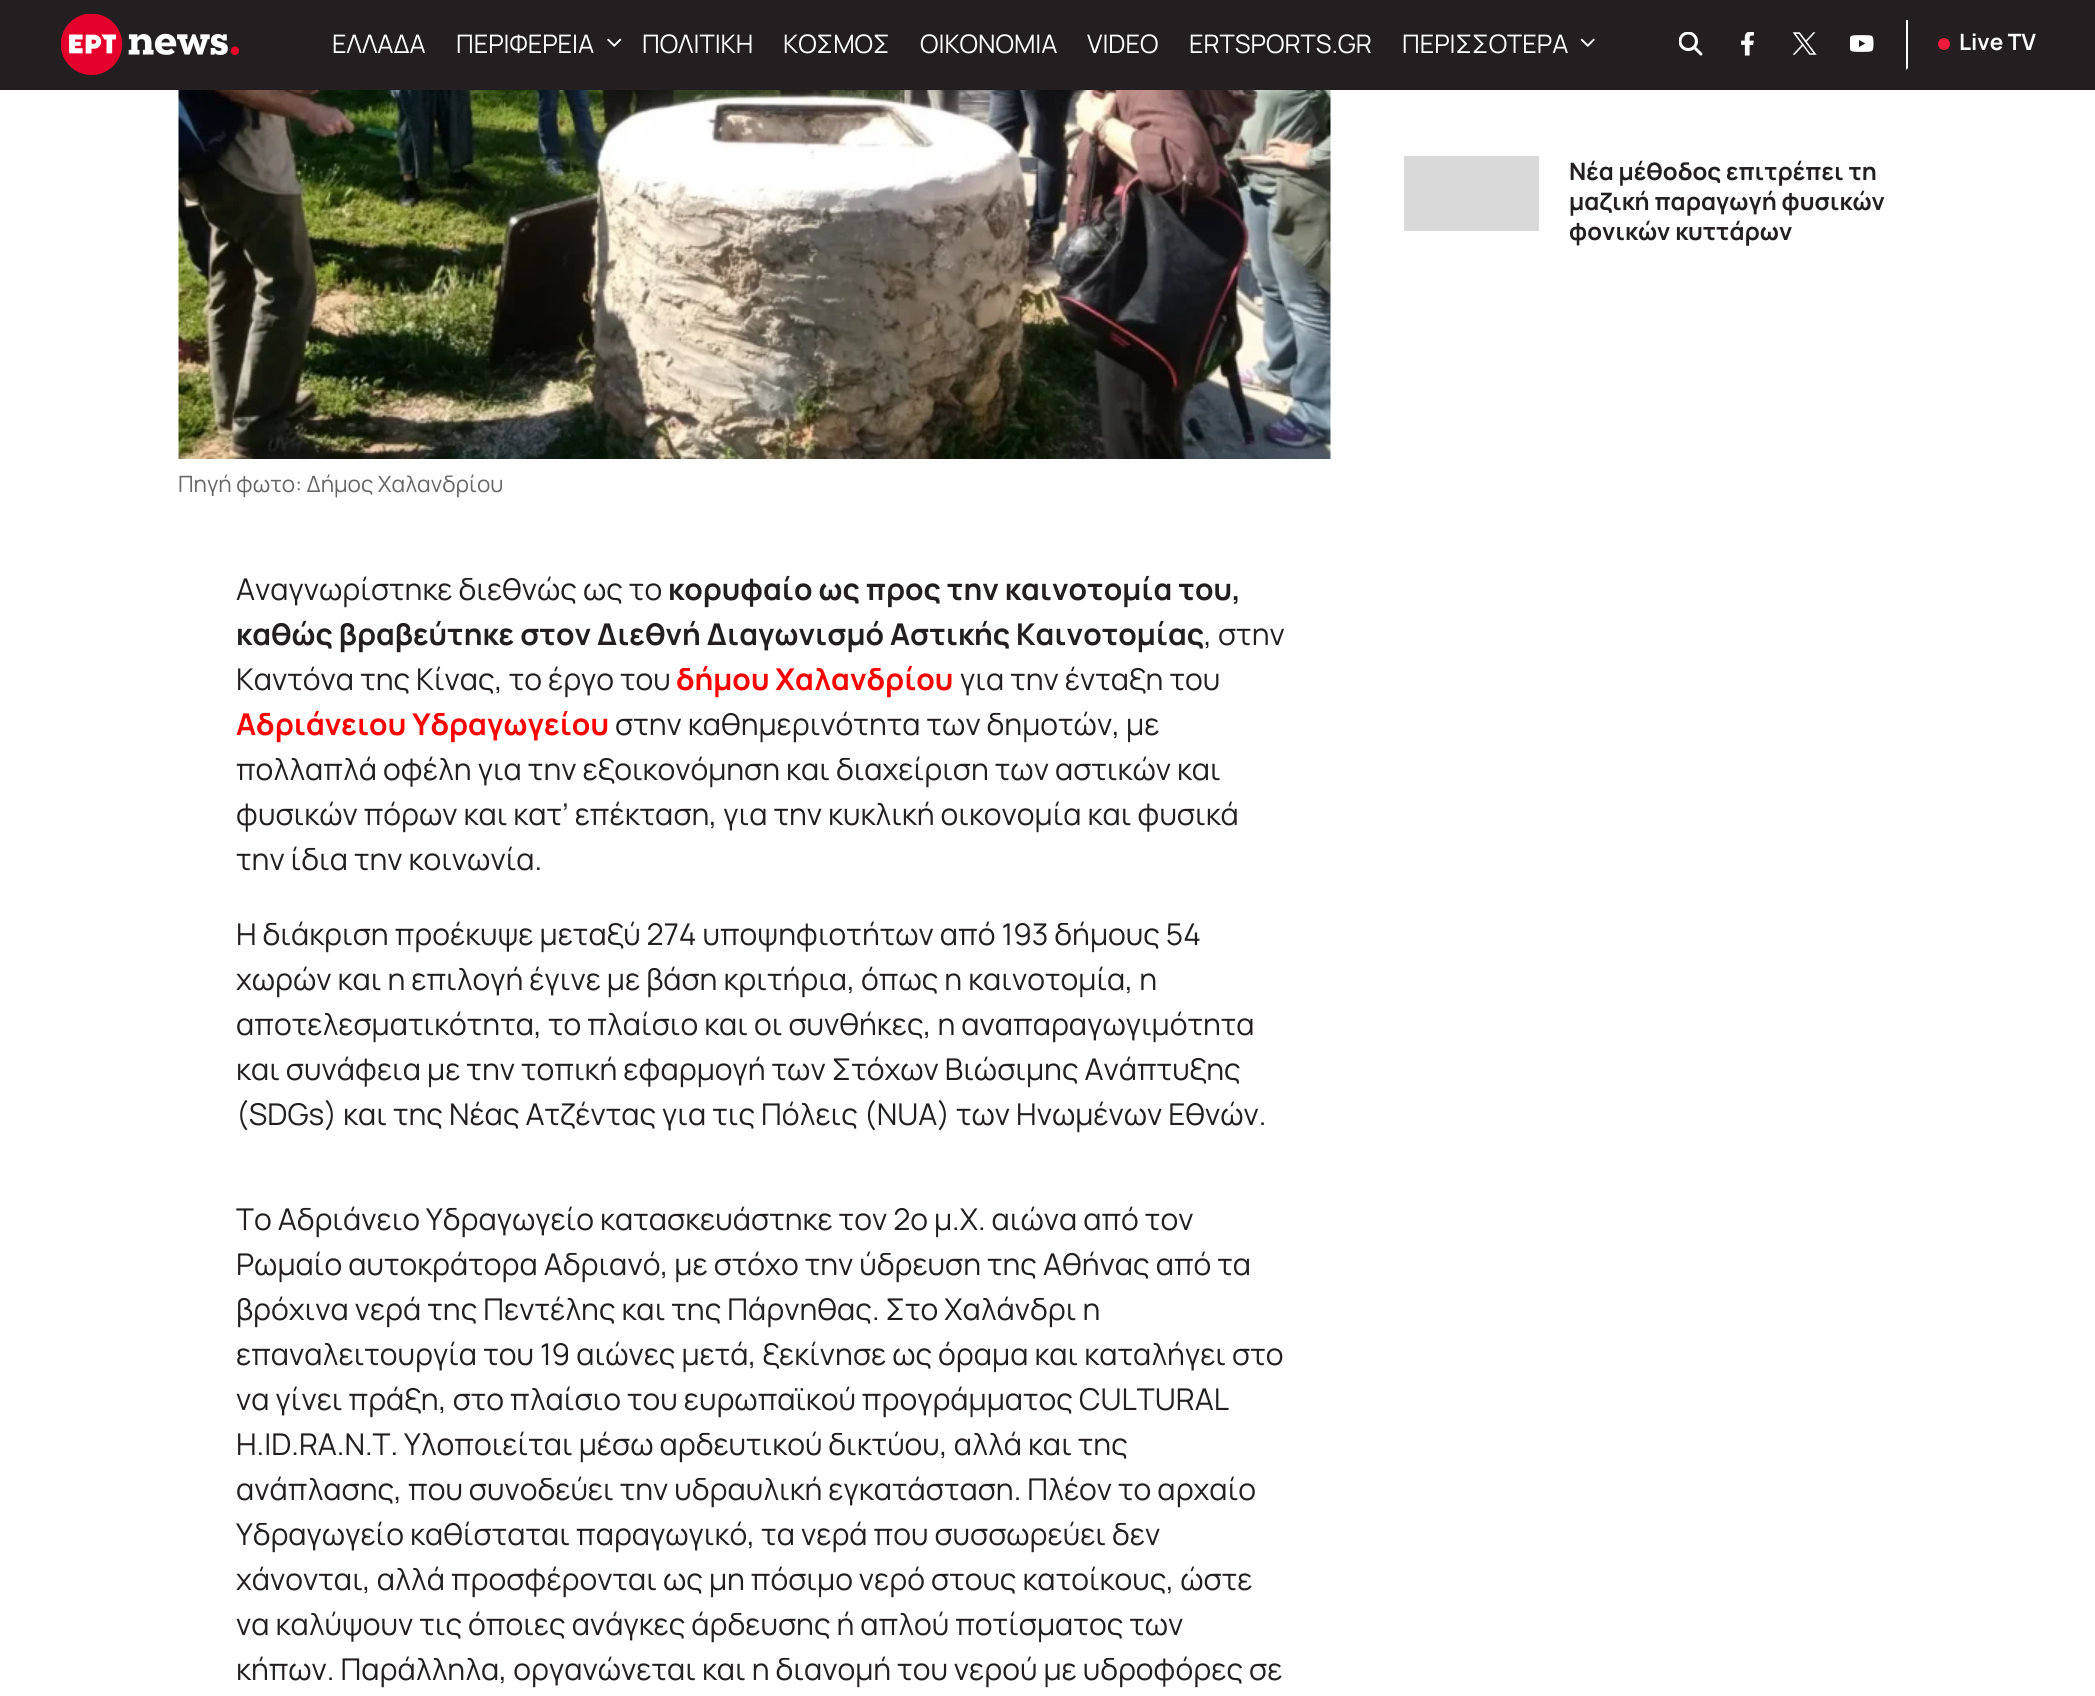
import math
import cairo


def use_color(cr, r, g, b):
  cr.set_source_rgb(r / 255, g / 255, b / 255)

def text(cr, x, y, s, family, size, color, bold=False, italic=False):
  cr.select_font_face(family, cairo.FONT_SLANT_ITALIC if italic else cairo.FONT_SLANT_NORMAL, cairo.FONT_WEIGHT_BOLD if bold else cairo.FONT_WEIGHT_NORMAL)
  cr.set_font_size(size)
  use_color(cr, *color)
  cr.move_to(x, y)
  cr.show_text(s)

def box(cr, x, y, w, h, *color):
  use_color(cr, *color)
  cr.rectangle(x, y, w, h)
  cr.fill()

def picture(cr, path, x, y, w, h):
  cr.save()
  cr.set_source_surface(cairo.ImageSurface.create_from_png(path), x, y)
  cr.rectangle(x, y, w, h)
  cr.fill()
  cr.restore()

def draw(cr):
  use_color(cr, 255, 255, 255)
  cr.paint()
  box(cr, 0, 0, 2095, 90, 35, 31, 32)
  picture(cr, "img_01.png", 61, 14, 178, 61)
  picture(cr, "img_02.png", 607, 38, 15, 9)
  picture(cr, "img_03.png", 1580, 38, 15, 9)
  picture(cr, "img_04.png", 1679, 32, 24, 24)
  picture(cr, "img_05.png", 1741, 32, 13, 24)
  picture(cr, "img_06.png", 1793, 32, 24, 23)
  picture(cr, "img_07.png", 1850, 35, 24, 17)
  use_color(cr, 255, 255, 255)
  cr.new_path()
  cr.move_to(1906, 70)
  cr.line_to(1906, 20)
  cr.line_to(1908, 20)
  cr.line_to(1908, 68)
  cr.close_path()
  cr.fill()
  use_color(cr, 237, 26, 59)
  cr.arc(1944, 44, 6, 0, 2 * math.pi)
  cr.fill()
  box(cr, 1404, 156, 135, 75, 217, 217, 217)
  picture(cr, "img_08.png", 178, 90, 1153, 369)
  text(cr, 332, 53, "ΕΛΛΑΔΑ", "Manrope", 25.5, (255, 255, 255))
  text(cr, 456, 53, "ΠΕΡΙΦΕΡΕΙΑ", "Manrope", 25.5, (255, 255, 255))
  text(cr, 642, 53, "ΠΟΛΙΤΙΚΗ", "Manrope", 25.5, (255, 255, 255))
  text(cr, 783, 53, "ΚΟΣΜΟΣ", "Manrope", 25.5, (255, 255, 255))
  text(cr, 920, 53, "ΟΙΚΟΝΟΜΙΑ", "Manrope", 25.5, (255, 255, 255))
  text(cr, 1087, 53, "VIDEO", "Manrope", 25.5, (255, 255, 255))
  text(cr, 1189, 53, "ERTSPORTS.GR", "Manrope", 25.5, (255, 255, 255))
  text(cr, 1402, 53, "ΠΕΡΙΣΣΟΤΕΡΑ", "Manrope", 25.5, (255, 255, 255))
  text(cr, 1959, 50, "Live TV", "Manrope", 22.5, (255, 255, 255), bold=True)
  text(cr, 1569, 180, "Νέα μέθοδος επιτρέπει τη", "Manrope", 24, (35, 31, 32), bold=True)
  text(cr, 1569, 210, "μαζική παραγωγή φυσικών", "Manrope", 24, (35, 31, 32), bold=True)
  text(cr, 1569, 240, "φονικών κυττάρων", "Manrope", 24, (35, 31, 32), bold=True)
  text(cr, 178, 492, "Πηγή φωτο: Δήμος Χαλανδρίου", "Manrope", 22.5, (102, 102, 102))
  text(cr, 236, 600, "Αναγνωρίστηκε διεθνώς ως το", "Manrope", 30, (35, 31, 32))
  text(cr, 668, 600, "κορυφαίο ως προς την καινοτομία του,", "Manrope", 30, (35, 31, 32), bold=True)
  text(cr, 236, 645, "καθώς βραβεύτηκε στον Διεθνή Διαγωνισμό Αστικής Καινοτομίας", "Manrope", 30, (35, 31, 32), bold=True)
  text(cr, 1204, 645, ", στην", "Manrope", 30, (35, 31, 32))
  text(cr, 236, 690, "Καντόνα της Κίνας, το έργο του", "Manrope", 30, (35, 31, 32))
  text(cr, 676, 690, "δήμου Χαλανδρίου", "Manrope", 30, (255, 0, 0), bold=True)
  text(cr, 960, 690, "για την ένταξη του", "Manrope", 30, (35, 31, 32))
  text(cr, 236, 735, "Αδριάνειου Υδραγωγείου", "Manrope", 30, (255, 0, 0), bold=True)
  text(cr, 615, 735, "στην καθημερινότητα των δημοτών, με", "Manrope", 30, (35, 31, 32))
  text(cr, 236, 780, "πολλαπλά οφέλη για την εξοικονόμηση και διαχείριση των αστικών και", "Manrope", 30, (35, 31, 32))
  text(cr, 236, 825, "φυσικών πόρων και κατ’ επέκταση, για την κυκλική οικονομία και φυσικά", "Manrope", 30, (35, 31, 32))
  text(cr, 236, 870, "την ίδια την κοινωνία.", "Manrope", 30, (35, 31, 32))
  text(cr, 236, 945, "Η διάκριση προέκυψε μεταξύ 274 υποψηφιοτήτων από 193 δήμους 54", "Manrope", 30, (35, 31, 32))
  text(cr, 236, 990, "χωρών και η επιλογή έγινε με βάση κριτήρια, όπως η καινοτομία, η", "Manrope", 30, (35, 31, 32))
  text(cr, 236, 1035, "αποτελεσματικότητα, το πλαίσιο και οι συνθήκες, η αναπαραγωγιμότητα", "Manrope", 30, (35, 31, 32))
  text(cr, 236, 1080, "και συνάφεια με την τοπική εφαρμογή των Στόχων Βιώσιμης Ανάπτυξης", "Manrope", 30, (35, 31, 32))
  text(cr, 236, 1125, "(SDGs) και της Νέας Ατζέντας για τις Πόλεις (NUA) των Ηνωμένων Εθνών.", "Manrope", 30, (35, 31, 32))
  text(cr, 236, 1230, "Το Αδριάνειο Υδραγωγείο κατασκευάστηκε τον 2ο μ.Χ. αιώνα από τον", "Manrope", 30, (35, 31, 32))
  text(cr, 236, 1275, "Ρωμαίο αυτοκράτορα Αδριανό, με στόχο την ύδρευση της Αθήνας από τα", "Manrope", 30, (35, 31, 32))
  text(cr, 236, 1320, "βρόχινα νερά της Πεντέλης και της Πάρνηθας. Στο Χαλάνδρι η", "Manrope", 30, (35, 31, 32))
  text(cr, 236, 1365, "επαναλειτουργία του 19 αιώνες μετά, ξεκίνησε ως όραμα και καταλήγει στο", "Manrope", 30, (35, 31, 32))
  text(cr, 236, 1410, "να γίνει πράξη, στο πλαίσιο του ευρωπαϊκού προγράμματος CULTURAL", "Manrope", 30, (35, 31, 32))
  text(cr, 236, 1455, "H.ID.RA.N.T. Υλοποιείται μέσω αρδευτικού δικτύου, αλλά και της", "Manrope", 30, (35, 31, 32))
  text(cr, 236, 1500, "ανάπλασης, που συνοδεύει την υδραυλική εγκατάσταση. Πλέον το αρχαίο", "Manrope", 30, (35, 31, 32))
  text(cr, 236, 1545, "Υδραγωγείο καθίσταται παραγωγικό, τα νερά που συσσωρεύει δεν", "Manrope", 30, (35, 31, 32))
  text(cr, 236, 1590, "χάνονται, αλλά προσφέρονται ως μη πόσιμο νερό στους κατοίκους, ώστε", "Manrope", 30, (35, 31, 32))
  text(cr, 236, 1635, "να καλύψουν τις όποιες ανάγκες άρδευσης ή απλού ποτίσματος των", "Manrope", 30, (35, 31, 32))
  text(cr, 236, 1680, "κήπων. Παράλληλα, οργανώνεται και η διανομή του νερού με υδροφόρες σε", "Manrope", 30, (35, 31, 32))


surface = cairo.ImageSurface(cairo.FORMAT_RGB24, 2095, 1696)
cr = cairo.Context(surface)
options = cairo.FontOptions()
options.set_hint_metrics(cairo.HINT_METRICS_OFF)
options.set_hint_style(cairo.HINT_STYLE_NONE)
cr.set_font_options(options)
cr.set_miter_limit(4)
draw(cr)
surface.write_to_png("out.png")
